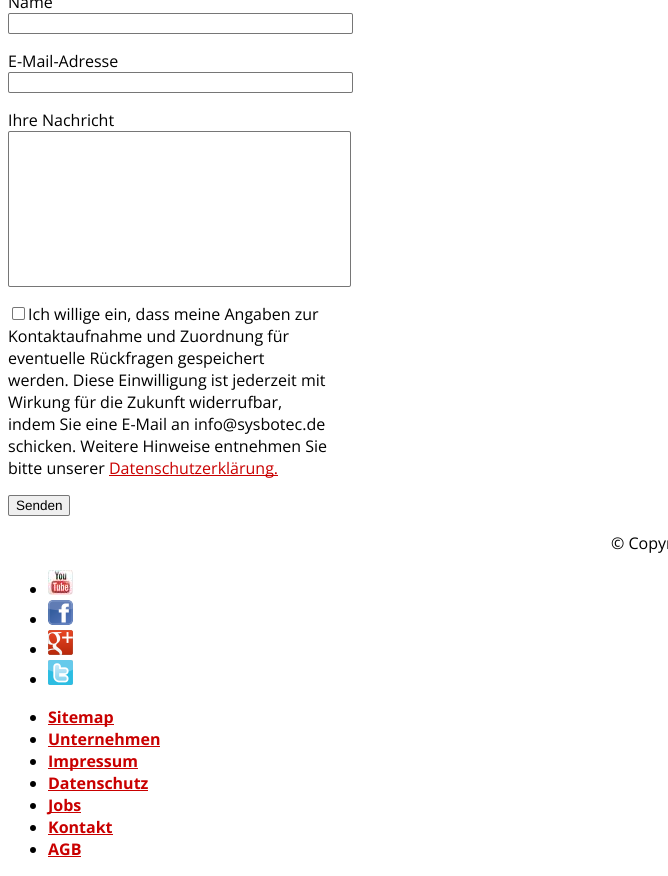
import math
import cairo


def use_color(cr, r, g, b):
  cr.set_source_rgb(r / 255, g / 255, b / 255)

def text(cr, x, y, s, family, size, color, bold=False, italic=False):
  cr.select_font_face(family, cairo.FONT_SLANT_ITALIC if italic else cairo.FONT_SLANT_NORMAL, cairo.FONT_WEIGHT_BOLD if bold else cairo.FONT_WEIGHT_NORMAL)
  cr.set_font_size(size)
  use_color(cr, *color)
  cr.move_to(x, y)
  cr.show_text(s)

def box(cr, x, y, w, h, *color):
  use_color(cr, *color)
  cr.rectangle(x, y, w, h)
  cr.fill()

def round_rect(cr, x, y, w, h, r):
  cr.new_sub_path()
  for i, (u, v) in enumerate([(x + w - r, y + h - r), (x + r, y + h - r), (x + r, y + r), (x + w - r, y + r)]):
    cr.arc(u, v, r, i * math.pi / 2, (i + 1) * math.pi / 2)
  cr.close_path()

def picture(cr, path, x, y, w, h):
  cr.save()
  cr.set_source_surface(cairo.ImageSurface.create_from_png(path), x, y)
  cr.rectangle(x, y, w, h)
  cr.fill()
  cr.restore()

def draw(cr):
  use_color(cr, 255, 255, 255)
  cr.paint()
  round_rect(cr, 8.5, 13.5, 344, 20, 1.5)
  use_color(cr, 118, 118, 118)
  cr.set_line_width(1)
  cr.stroke()
  round_rect(cr, 8.5, 72.5, 344, 20, 1.5)
  cr.stroke()
  round_rect(cr, 8.5, 131.5, 342, 155, 1.5)
  cr.stroke()
  round_rect(cr, 12.5, 307.5, 12, 12, 1.5)
  cr.stroke()
  box(cr, 109, 475, 169, 1, 201, 0, 0)
  use_color(cr, 239, 239, 239)
  round_rect(cr, 8.5, 495.5, 61, 20, 1.5)
  cr.fill_preserve()
  use_color(cr, 118, 118, 118)
  cr.stroke()
  use_color(cr, 0, 0, 0)
  cr.arc(33, 590, 3, 0, 2 * math.pi)
  cr.fill()
  picture(cr, "img_01.png", 48, 570, 25, 25)
  cr.arc(33, 620, 3, 0, 2 * math.pi)
  cr.fill()
  picture(cr, "img_02.png", 48, 600, 25, 25)
  cr.arc(33, 650, 3, 0, 2 * math.pi)
  cr.fill()
  picture(cr, "img_03.png", 48, 630, 25, 25)
  cr.arc(33, 680, 3, 0, 2 * math.pi)
  cr.fill()
  picture(cr, "img_04.png", 48, 660, 25, 25)
  cr.arc(33, 718, 3, 0, 2 * math.pi)
  cr.fill()
  box(cr, 48, 724, 66, 1, 201, 0, 0)
  use_color(cr, 0, 0, 0)
  cr.arc(33, 740, 3, 0, 2 * math.pi)
  cr.fill()
  box(cr, 48, 746, 112, 1, 201, 0, 0)
  use_color(cr, 0, 0, 0)
  cr.arc(33, 762, 3, 0, 2 * math.pi)
  cr.fill()
  box(cr, 48, 768, 90, 1, 201, 0, 0)
  use_color(cr, 0, 0, 0)
  cr.arc(33, 784, 3, 0, 2 * math.pi)
  cr.fill()
  box(cr, 48, 790, 100, 1, 201, 0, 0)
  use_color(cr, 0, 0, 0)
  cr.arc(33, 806, 3, 0, 2 * math.pi)
  cr.fill()
  box(cr, 48, 812, 33, 1, 201, 0, 0)
  use_color(cr, 0, 0, 0)
  cr.arc(33, 828, 3, 0, 2 * math.pi)
  cr.fill()
  box(cr, 48, 834, 65, 1, 201, 0, 0)
  use_color(cr, 0, 0, 0)
  cr.arc(33, 850, 3, 0, 2 * math.pi)
  cr.fill()
  box(cr, 48, 856, 33, 1, 201, 0, 0)
  text(cr, 8, 8, "Name", "Open Sans", 16, (0, 0, 0))
  text(cr, 8, 67, "E-Mail-Adresse", "Open Sans", 16, (0, 0, 0))
  text(cr, 8, 126, "Ihre Nachricht", "Open Sans", 16, (0, 0, 0))
  text(cr, 28, 320, "Ich willige ein, dass meine Angaben zur", "Open Sans", 16, (0, 0, 0))
  text(cr, 8, 342, "Kontaktaufnahme und Zuordnung für", "Open Sans", 16, (0, 0, 0))
  text(cr, 8, 364, "eventuelle Rückfragen gespeichert", "Open Sans", 16, (0, 0, 0))
  text(cr, 8, 386, "werden. Diese Einwilligung ist jederzeit mit", "Open Sans", 16, (0, 0, 0))
  text(cr, 8, 408, "Wirkung für die Zukunft widerrufbar,", "Open Sans", 16, (0, 0, 0))
  text(cr, 8, 430, "indem Sie eine E-Mail an info@sysbotec.de", "Open Sans", 16, (0, 0, 0))
  text(cr, 8, 452, "schicken. Weitere Hinweise entnehmen Sie", "Open Sans", 16, (0, 0, 0))
  text(cr, 8, 474, "bitte unserer", "Open Sans", 16, (0, 0, 0))
  text(cr, 109, 474, "Datenschutzerklärung.", "Open Sans", 16, (201, 0, 0))
  text(cr, 16, 510, "Senden", "Liberation Sans", 13.5, (0, 0, 0))
  text(cr, 611, 549, "© Copyr", "Open Sans", 16, (0, 0, 0))
  text(cr, 48, 723, "Sitemap", "Open Sans", 16, (201, 0, 0), bold=True)
  text(cr, 48, 745, "Unternehmen", "Open Sans", 16, (201, 0, 0), bold=True)
  text(cr, 48, 767, "Impressum", "Open Sans", 16, (201, 0, 0), bold=True)
  text(cr, 48, 789, "Datenschutz", "Open Sans", 16, (201, 0, 0), bold=True)
  text(cr, 48, 811, "Jobs", "Open Sans", 16, (201, 0, 0), bold=True)
  text(cr, 48, 833, "Kontakt", "Open Sans", 16, (201, 0, 0), bold=True)
  text(cr, 48, 855, "AGB", "Open Sans", 16, (201, 0, 0), bold=True)


surface = cairo.ImageSurface(cairo.FORMAT_RGB24, 668, 876)
cr = cairo.Context(surface)
options = cairo.FontOptions()
options.set_hint_metrics(cairo.HINT_METRICS_OFF)
options.set_hint_style(cairo.HINT_STYLE_NONE)
cr.set_font_options(options)
cr.set_miter_limit(4)
draw(cr)
surface.write_to_png("out.png")
